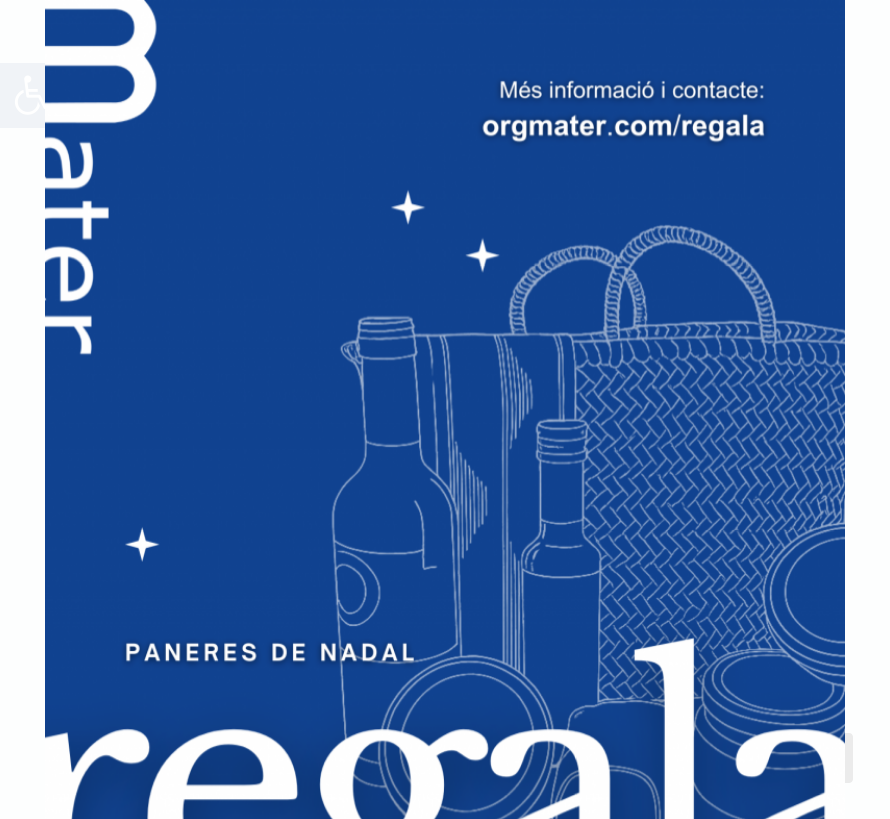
import math
import cairo


def use_color(cr, r, g, b):
  cr.set_source_rgb(r / 255, g / 255, b / 255)

def box(cr, x, y, w, h, *color):
  use_color(cr, *color)
  cr.rectangle(x, y, w, h)
  cr.fill()

def round_rect(cr, x, y, w, h, r):
  cr.new_sub_path()
  for i, (u, v) in enumerate([(x + w - r, y + h - r), (x + r, y + h - r), (x + r, y + r), (x + w - r, y + r)]):
    cr.arc(u, v, r, i * math.pi / 2, (i + 1) * math.pi / 2)
  cr.close_path()

def picture(cr, path, x, y, w, h):
  cr.save()
  cr.set_source_surface(cairo.ImageSurface.create_from_png(path), x, y)
  cr.rectangle(x, y, w, h)
  cr.fill()
  cr.restore()

def draw(cr):
  use_color(cr, 253, 254, 254)
  cr.paint()
  box(cr, 0, 63, 45, 65, 240, 243, 247)
  picture(cr, "img_01.png", 14, 75, 31, 40)
  use_color(cr, 235, 235, 235)
  round_rect(cr, 803, 733, 50, 50, 4)
  cr.fill()
  picture(cr, "img_02.png", 45, 0, 800, 819)


surface = cairo.ImageSurface(cairo.FORMAT_RGB24, 890, 819)
cr = cairo.Context(surface)
options = cairo.FontOptions()
options.set_hint_metrics(cairo.HINT_METRICS_OFF)
options.set_hint_style(cairo.HINT_STYLE_NONE)
cr.set_font_options(options)
cr.set_miter_limit(4)
draw(cr)
surface.write_to_png("out.png")
